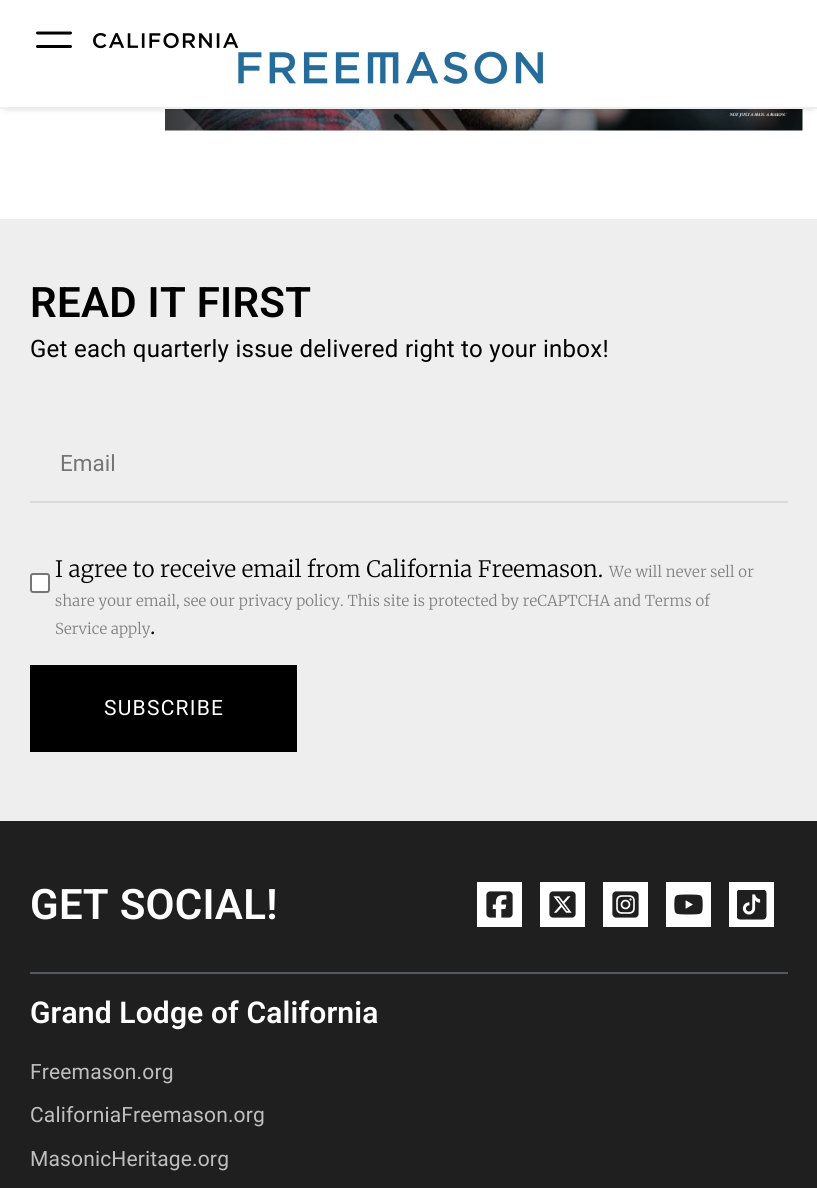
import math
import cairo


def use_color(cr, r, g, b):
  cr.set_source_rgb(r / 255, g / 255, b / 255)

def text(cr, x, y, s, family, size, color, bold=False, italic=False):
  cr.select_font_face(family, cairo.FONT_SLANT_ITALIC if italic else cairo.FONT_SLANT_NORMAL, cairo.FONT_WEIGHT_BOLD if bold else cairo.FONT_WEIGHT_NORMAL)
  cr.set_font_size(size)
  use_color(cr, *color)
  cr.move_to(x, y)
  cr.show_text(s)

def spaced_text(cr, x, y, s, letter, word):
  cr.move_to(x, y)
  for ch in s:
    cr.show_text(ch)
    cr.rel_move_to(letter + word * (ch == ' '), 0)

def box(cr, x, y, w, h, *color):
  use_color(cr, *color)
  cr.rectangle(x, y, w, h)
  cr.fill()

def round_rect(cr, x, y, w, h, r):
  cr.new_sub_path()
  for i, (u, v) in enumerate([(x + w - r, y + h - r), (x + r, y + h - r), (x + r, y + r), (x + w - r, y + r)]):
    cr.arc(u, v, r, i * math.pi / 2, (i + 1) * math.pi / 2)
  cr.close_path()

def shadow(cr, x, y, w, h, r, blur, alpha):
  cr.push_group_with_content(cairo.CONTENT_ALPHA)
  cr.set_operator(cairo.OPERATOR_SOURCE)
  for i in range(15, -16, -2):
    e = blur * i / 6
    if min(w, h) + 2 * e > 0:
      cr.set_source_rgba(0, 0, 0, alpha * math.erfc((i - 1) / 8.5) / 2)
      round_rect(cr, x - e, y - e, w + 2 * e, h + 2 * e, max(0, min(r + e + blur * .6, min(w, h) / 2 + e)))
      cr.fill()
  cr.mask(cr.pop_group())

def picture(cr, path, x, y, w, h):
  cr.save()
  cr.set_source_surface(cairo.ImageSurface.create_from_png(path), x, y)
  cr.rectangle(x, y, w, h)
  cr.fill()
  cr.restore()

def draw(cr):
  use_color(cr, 255, 255, 255)
  cr.paint()
  picture(cr, "img_02.png", 165, 109, 638, 22)
  use_color(cr, 0, 0, 0)
  shadow(cr, 6, 9, 806, 96, 0, 4.5, 0.4)
  box(cr, 0, 0, 817, 107, 255, 255, 255)
  box(cr, 0, 107, 817, 2, 238, 238, 238)
  cr.new_path()
  cr.move_to(37.5, 33)
  cr.line_to(70.5, 33)
  cr.move_to(37.5, 46.5)
  cr.line_to(70.5, 46.5)
  use_color(cr, 0, 0, 0)
  cr.set_line_width(3)
  cr.set_line_cap(cairo.LINE_CAP_ROUND)
  cr.set_line_join(cairo.LINE_JOIN_ROUND)
  cr.stroke()
  picture(cr, "img_01.png", 93, 33, 450, 51)
  box(cr, 0, 219, 817, 602, 238, 238, 238)
  box(cr, 30, 501, 758, 2, 217, 217, 217)
  use_color(cr, 255, 255, 255)
  round_rect(cr, 31, 574, 18, 18, 2)
  cr.fill_preserve()
  use_color(cr, 118, 118, 118)
  cr.set_line_width(2)
  cr.set_line_cap(cairo.LINE_CAP_BUTT)
  cr.set_line_join(cairo.LINE_JOIN_MITER)
  cr.stroke()
  box(cr, 30, 665, 267, 87, 0, 0, 0)
  box(cr, 0, 821, 817, 367, 31, 31, 31)
  box(cr, 477, 882, 45, 45, 255, 255, 255)
  picture(cr, "img_03.png", 486, 891, 27, 27)
  box(cr, 540, 882, 45, 45, 255, 255, 255)
  picture(cr, "img_04.png", 549, 891, 27, 27)
  box(cr, 603, 882, 45, 45, 255, 255, 255)
  picture(cr, "img_05.png", 612, 891, 27, 27)
  box(cr, 666, 882, 45, 45, 255, 255, 255)
  picture(cr, "img_06.png", 674, 894, 29, 21)
  box(cr, 729, 882, 45, 45, 255, 255, 255)
  picture(cr, "img_07.png", 737, 890, 30, 30)
  box(cr, 30, 972, 758, 2, 84, 89, 95)
  cr.select_font_face("Roboto SemiBold")
  cr.set_font_size(42)
  use_color(cr, 0, 0, 0)
  spaced_text(cr, 30, 317, "READ IT FIRST", 0.27, 0)
  cr.select_font_face("Roboto")
  cr.set_font_size(24)
  spaced_text(cr, 30, 357, "Get each quarterly issue delivered right to your inbox!", 0.27, 0)
  text(cr, 60, 471, "Email", "Roboto", 22.5, (117, 117, 117))
  cr.select_font_face("Merriweather Light")
  use_color(cr, 0, 0, 0)
  spaced_text(cr, 55, 577, "I agree to receive email from California Freemason.", 0.15, 0)
  cr.set_font_size(15)
  use_color(cr, 128, 128, 128)
  spaced_text(cr, 609, 577, "We will never sell or", 0.15, 0)
  spaced_text(cr, 55, 606, "share your email, see our privacy policy. This site is protected by reCAPTCHA and Terms of", 0.15, 0)
  spaced_text(cr, 55, 634, "Service apply", 0.15, 0)
  cr.set_font_size(22.5)
  use_color(cr, 0, 0, 0)
  spaced_text(cr, 150, 634, ".", 0.15, 0)
  cr.select_font_face("Roboto")
  cr.set_font_size(21)
  use_color(cr, 255, 255, 255)
  spaced_text(cr, 104, 715, "SUBSCRIBE", 1.25, 0)
  cr.select_font_face("Roboto SemiBold")
  cr.set_font_size(42)
  spaced_text(cr, 30, 919, "GET SOCIAL!", 0.27, 0)
  cr.set_font_size(30)
  spaced_text(cr, 30, 1023, "Grand Lodge of California", 0.15, 0)
  cr.select_font_face("Roboto")
  cr.set_font_size(21)
  use_color(cr, 191, 191, 191)
  spaced_text(cr, 30, 1079, "Freemason.org", 0.15, 0)
  spaced_text(cr, 30, 1122, "CaliforniaFreemason.org", 0.15, 0)
  spaced_text(cr, 30, 1166, "MasonicHeritage.org", 0.15, 0)


surface = cairo.ImageSurface(cairo.FORMAT_RGB24, 817, 1188)
cr = cairo.Context(surface)
options = cairo.FontOptions()
options.set_hint_metrics(cairo.HINT_METRICS_OFF)
options.set_hint_style(cairo.HINT_STYLE_NONE)
cr.set_font_options(options)
cr.set_miter_limit(4)
draw(cr)
surface.write_to_png("out.png")
